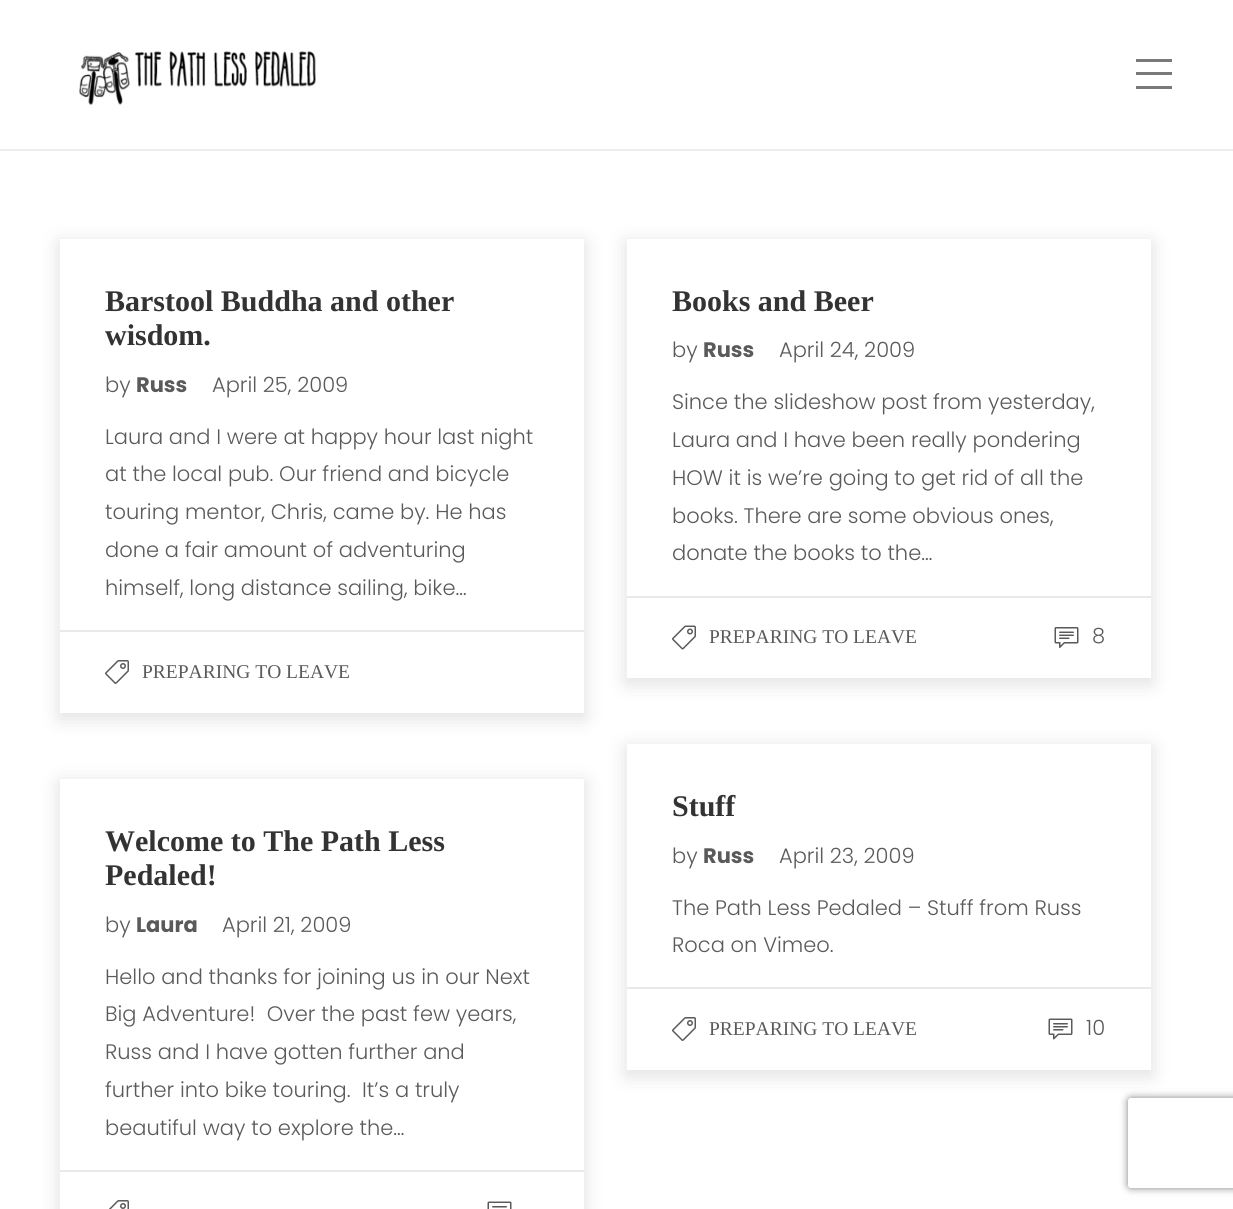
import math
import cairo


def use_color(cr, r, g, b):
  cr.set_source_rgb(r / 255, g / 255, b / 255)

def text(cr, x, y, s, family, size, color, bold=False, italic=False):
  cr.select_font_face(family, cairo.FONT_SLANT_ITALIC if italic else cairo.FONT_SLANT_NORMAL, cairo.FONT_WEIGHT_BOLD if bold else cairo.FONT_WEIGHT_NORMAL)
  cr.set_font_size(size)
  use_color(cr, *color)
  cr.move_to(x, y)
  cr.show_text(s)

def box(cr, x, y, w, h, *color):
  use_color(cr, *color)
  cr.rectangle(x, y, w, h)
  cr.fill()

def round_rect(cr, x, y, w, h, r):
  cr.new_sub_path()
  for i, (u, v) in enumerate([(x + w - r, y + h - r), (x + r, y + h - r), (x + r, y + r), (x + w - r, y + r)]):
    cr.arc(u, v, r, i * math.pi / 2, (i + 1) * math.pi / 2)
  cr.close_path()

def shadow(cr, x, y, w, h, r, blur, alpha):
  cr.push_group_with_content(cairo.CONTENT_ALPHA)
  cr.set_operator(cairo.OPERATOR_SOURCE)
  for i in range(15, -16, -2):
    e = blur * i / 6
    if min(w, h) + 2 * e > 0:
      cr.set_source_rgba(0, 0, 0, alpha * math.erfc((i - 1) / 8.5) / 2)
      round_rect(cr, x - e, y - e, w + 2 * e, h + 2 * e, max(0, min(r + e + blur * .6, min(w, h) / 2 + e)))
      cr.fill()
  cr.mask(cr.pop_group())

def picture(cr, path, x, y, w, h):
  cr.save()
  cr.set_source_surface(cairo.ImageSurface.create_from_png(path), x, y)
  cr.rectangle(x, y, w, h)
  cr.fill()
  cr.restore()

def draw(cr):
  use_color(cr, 255, 255, 255)
  cr.paint()
  box(cr, 0, 149, 1233, 2, 237, 237, 237)
  picture(cr, "img_01.png", 79, 51, 237, 55)
  box(cr, 1136, 72, 36, 3, 121, 121, 121)
  box(cr, 1136, 59, 36, 3, 121, 121, 121)
  box(cr, 1136, 86, 36, 3, 121, 121, 121)
  cr.save()
  cr.set_fill_rule(cairo.FILL_RULE_EVEN_ODD)
  cr.new_path()
  cr.move_to(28, 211)
  cr.line_to(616, 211)
  cr.line_to(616, 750)
  cr.line_to(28, 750)
  cr.close_path()
  cr.move_to(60, 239)
  cr.line_to(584, 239)
  cr.line_to(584, 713)
  cr.line_to(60, 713)
  cr.close_path()
  cr.clip()
  use_color(cr, 0, 0, 0)
  shadow(cr, 59, 242, 526, 477, 0, 10, 0.12)
  cr.restore()
  box(cr, 60, 630, 524, 2, 233, 233, 233)
  picture(cr, "img_02.png", 105, 660, 24, 24)
  cr.save()
  cr.set_fill_rule(cairo.FILL_RULE_EVEN_ODD)
  cr.new_path()
  cr.move_to(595, 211)
  cr.line_to(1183, 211)
  cr.line_to(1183, 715)
  cr.line_to(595, 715)
  cr.close_path()
  cr.move_to(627, 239)
  cr.line_to(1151, 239)
  cr.line_to(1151, 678)
  cr.line_to(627, 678)
  cr.close_path()
  cr.clip()
  use_color(cr, 0, 0, 0)
  shadow(cr, 626, 242, 526, 442, 0, 10, 0.12)
  cr.restore()
  box(cr, 627, 596, 524, 2, 233, 233, 233)
  picture(cr, "img_03.png", 672, 625, 24, 25)
  picture(cr, "img_04.png", 1054, 627, 25, 21)
  cr.save()
  cr.set_fill_rule(cairo.FILL_RULE_EVEN_ODD)
  cr.new_path()
  cr.move_to(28, 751)
  cr.line_to(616, 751)
  cr.line_to(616, 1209)
  cr.line_to(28, 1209)
  cr.close_path()
  cr.move_to(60, 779)
  cr.line_to(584, 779)
  cr.line_to(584, 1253)
  cr.line_to(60, 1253)
  cr.close_path()
  cr.clip()
  use_color(cr, 0, 0, 0)
  shadow(cr, 59, 782, 526, 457, 0, 10, 0.12)
  cr.restore()
  box(cr, 60, 1170, 524, 2, 233, 233, 233)
  picture(cr, "img_05.png", 109, 1200, 20, 9)
  picture(cr, "img_06.png", 487, 1201, 25, 8)
  cr.save()
  cr.set_fill_rule(cairo.FILL_RULE_EVEN_ODD)
  cr.new_path()
  cr.move_to(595, 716)
  cr.line_to(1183, 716)
  cr.line_to(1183, 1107)
  cr.line_to(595, 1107)
  cr.close_path()
  cr.move_to(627, 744)
  cr.line_to(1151, 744)
  cr.line_to(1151, 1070)
  cr.line_to(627, 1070)
  cr.close_path()
  cr.clip()
  use_color(cr, 0, 0, 0)
  shadow(cr, 626, 747, 526, 329, 0, 10, 0.12)
  cr.restore()
  box(cr, 627, 987, 524, 2, 233, 233, 233)
  picture(cr, "img_02.png", 672, 1017, 24, 24)
  picture(cr, "img_07.png", 1048, 1018, 25, 22)
  cr.save()
  cr.set_fill_rule(cairo.FILL_RULE_EVEN_ODD)
  cr.new_path()
  cr.move_to(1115, 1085)
  cr.line_to(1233, 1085)
  cr.line_to(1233, 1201)
  cr.line_to(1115, 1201)
  cr.close_path()
  cr.move_to(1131, 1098)
  cr.line_to(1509, 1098)
  cr.curve_to(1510.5, 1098, 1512, 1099.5, 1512, 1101)
  cr.line_to(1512, 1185)
  cr.curve_to(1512, 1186.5, 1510.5, 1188, 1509, 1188)
  cr.line_to(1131, 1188)
  cr.curve_to(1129.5, 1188, 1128, 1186.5, 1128, 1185)
  cr.line_to(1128, 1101)
  cr.curve_to(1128, 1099.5, 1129.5, 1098, 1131, 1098)
  cr.close_path()
  cr.clip()
  use_color(cr, 128, 128, 128)
  shadow(cr, 1128, 1098, 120, 90, 3, 4, 1)
  cr.restore()
  text(cr, 105, 311, "Barstool Buddha and other", "Liberation Serif", 30, (51, 51, 51), bold=True)
  text(cr, 105, 345, "wisdom.", "Liberation Serif", 30, (51, 51, 51), bold=True)
  text(cr, 105, 392, "by", "Poppins Light", 21, (90, 90, 90))
  text(cr, 136, 392, "Russ", "Poppins", 21, (90, 90, 90), bold=True)
  text(cr, 212, 392, "April 25, 2009", "Poppins Light", 21, (90, 90, 90))
  text(cr, 105, 444, "Laura and I were at happy hour last night", "Poppins Light", 21, (90, 90, 90))
  text(cr, 105, 481, "at the local pub. Our friend and bicycle", "Poppins Light", 21, (90, 90, 90))
  text(cr, 105, 519, "touring mentor, Chris, came by. He has", "Poppins Light", 21, (90, 90, 90))
  text(cr, 105, 557, "done a fair amount of adventuring", "Poppins Light", 21, (90, 90, 90))
  text(cr, 105, 595, "himself, long distance sailing, bike…", "Poppins Light", 21, (90, 90, 90))
  text(cr, 142, 678, "PREPARING TO LEAVE", "Liberation Serif", 19.5, (90, 90, 90))
  text(cr, 672, 311, "Books and Beer", "Liberation Serif", 30, (51, 51, 51), bold=True)
  text(cr, 672, 357, "by", "Poppins Light", 21, (90, 90, 90))
  text(cr, 703, 357, "Russ", "Poppins", 21, (90, 90, 90), bold=True)
  text(cr, 779, 357, "April 24, 2009", "Poppins Light", 21, (90, 90, 90))
  text(cr, 672, 409, "Since the slideshow post from yesterday,", "Poppins Light", 21, (90, 90, 90))
  text(cr, 672, 447, "Laura and I have been really pondering", "Poppins Light", 21, (90, 90, 90))
  text(cr, 672, 485, "HOW it is we’re going to get rid of all the", "Poppins Light", 21, (90, 90, 90))
  text(cr, 672, 523, "books. There are some obvious ones,", "Poppins Light", 21, (90, 90, 90))
  text(cr, 672, 560, "donate the books to the…", "Poppins Light", 21, (90, 90, 90))
  text(cr, 709, 643, "PREPARING TO LEAVE", "Liberation Serif", 19.5, (90, 90, 90))
  text(cr, 1092, 643, "8", "Poppins Light", 21, (90, 90, 90))
  text(cr, 105, 851, "Welcome to The Path Less", "Liberation Serif", 30, (51, 51, 51), bold=True)
  text(cr, 105, 885, "Pedaled!", "Liberation Serif", 30, (51, 51, 51), bold=True)
  text(cr, 105, 932, "by", "Poppins Light", 21, (90, 90, 90))
  text(cr, 136, 932, "Laura", "Poppins", 21, (90, 90, 90), bold=True)
  text(cr, 222, 932, "April 21, 2009", "Poppins Light", 21, (90, 90, 90))
  text(cr, 105, 984, "Hello and thanks for joining us in our Next", "Poppins Light", 21, (90, 90, 90))
  text(cr, 105, 1021, "Big Adventure!  Over the past few years,", "Poppins Light", 21, (90, 90, 90))
  text(cr, 105, 1059, "Russ and I have gotten further and", "Poppins Light", 21, (90, 90, 90))
  text(cr, 105, 1097, "further into bike touring.  It’s a truly", "Poppins Light", 21, (90, 90, 90))
  text(cr, 105, 1135, "beautiful way to explore the…", "Poppins Light", 21, (90, 90, 90))
  text(cr, 672, 816, "Stuff", "Liberation Serif", 30, (51, 51, 51), bold=True)
  text(cr, 672, 863, "by", "Poppins Light", 21, (90, 90, 90))
  text(cr, 703, 863, "Russ", "Poppins", 21, (90, 90, 90), bold=True)
  text(cr, 779, 863, "April 23, 2009", "Poppins Light", 21, (90, 90, 90))
  text(cr, 672, 915, "The Path Less Pedaled – Stuff from Russ", "Poppins Light", 21, (90, 90, 90))
  text(cr, 672, 952, "Roca on Vimeo.", "Poppins Light", 21, (90, 90, 90))
  text(cr, 709, 1035, "PREPARING TO LEAVE", "Liberation Serif", 19.5, (90, 90, 90))
  text(cr, 1086, 1035, "10", "Poppins Light", 21, (90, 90, 90))


surface = cairo.ImageSurface(cairo.FORMAT_RGB24, 1233, 1209)
cr = cairo.Context(surface)
options = cairo.FontOptions()
options.set_hint_metrics(cairo.HINT_METRICS_OFF)
options.set_hint_style(cairo.HINT_STYLE_NONE)
cr.set_font_options(options)
cr.set_miter_limit(4)
draw(cr)
surface.write_to_png("out.png")
